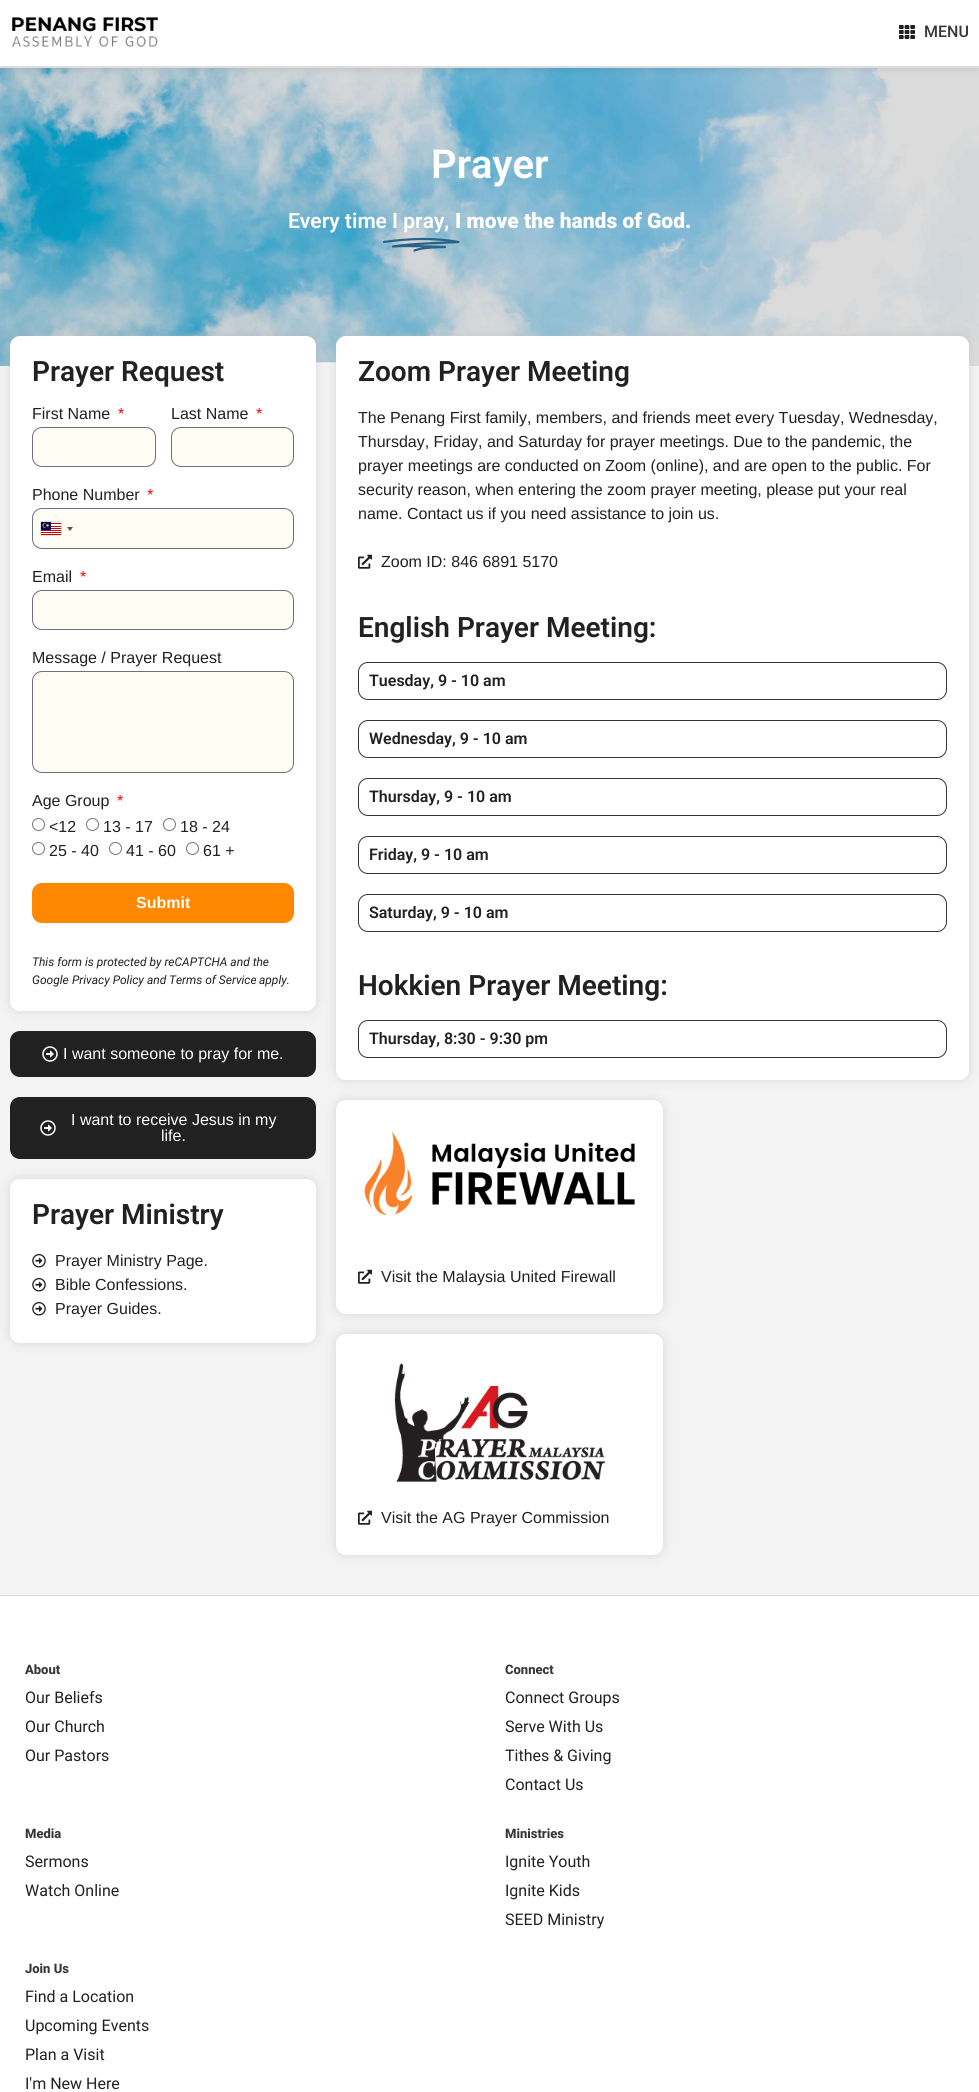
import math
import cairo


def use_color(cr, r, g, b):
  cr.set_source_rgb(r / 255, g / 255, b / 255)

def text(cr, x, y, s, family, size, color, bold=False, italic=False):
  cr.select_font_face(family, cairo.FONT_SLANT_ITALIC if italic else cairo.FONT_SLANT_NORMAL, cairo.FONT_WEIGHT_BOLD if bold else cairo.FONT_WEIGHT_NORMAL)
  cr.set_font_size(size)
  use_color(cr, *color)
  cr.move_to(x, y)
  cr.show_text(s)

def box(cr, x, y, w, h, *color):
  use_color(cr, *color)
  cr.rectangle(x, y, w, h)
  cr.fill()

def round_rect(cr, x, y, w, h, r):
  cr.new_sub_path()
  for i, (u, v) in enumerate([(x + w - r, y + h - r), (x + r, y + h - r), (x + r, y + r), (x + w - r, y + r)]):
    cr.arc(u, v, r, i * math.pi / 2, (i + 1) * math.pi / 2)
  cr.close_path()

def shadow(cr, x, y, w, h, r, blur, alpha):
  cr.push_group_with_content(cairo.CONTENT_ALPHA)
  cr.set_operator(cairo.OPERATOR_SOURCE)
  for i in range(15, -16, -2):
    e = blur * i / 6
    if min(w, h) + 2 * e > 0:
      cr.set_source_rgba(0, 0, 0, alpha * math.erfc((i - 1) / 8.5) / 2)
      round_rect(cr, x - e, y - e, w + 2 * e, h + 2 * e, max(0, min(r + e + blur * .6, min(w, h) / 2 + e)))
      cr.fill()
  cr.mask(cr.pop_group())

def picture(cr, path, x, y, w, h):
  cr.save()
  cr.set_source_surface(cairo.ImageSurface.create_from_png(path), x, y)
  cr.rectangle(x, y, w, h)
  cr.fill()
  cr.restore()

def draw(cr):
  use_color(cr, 243, 243, 243)
  cr.paint()
  picture(cr, "img_03.png", 0, 68, 979, 298)
  use_color(cr, 0, 0, 0)
  shadow(cr, 0, 0, 979, 68, 0, 5, 0.12)
  box(cr, 0, 0, 979, 66, 255, 255, 255)
  box(cr, 0, 66, 979, 2, 221, 221, 221)
  picture(cr, "img_01.png", 12, 17, 146, 30)
  picture(cr, "img_02.png", 899, 25, 16, 14)
  cr.new_path()
  cr.move_to(384, 242)
  cr.curve_to(408, 238.5, 434, 237.5, 458.5, 242)
  cr.curve_to(441, 243, 410.5, 243.5, 393, 246.5)
  cr.curve_to(406, 245.5, 432.5, 246.5, 445, 247)
  cr.curve_to(436.5, 247.5, 424, 247, 414.5, 250.5)
  use_color(cr, 40, 98, 134)
  cr.set_line_width(2.2)
  cr.set_line_cap(cairo.LINE_CAP_ROUND)
  cr.set_line_join(cairo.LINE_JOIN_ROUND)
  cr.stroke()
  use_color(cr, 244, 244, 244)
  cr.new_path()
  cr.move_to(-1, 367)
  cr.line_to(979, 367)
  cr.curve_to(978, 366, 855, 362, 489, 362)
  cr.curve_to(123, 362, -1, 366, -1, 367)
  cr.close_path()
  cr.fill()
  use_color(cr, 186, 186, 186)
  shadow(cr, 10, 336, 306, 675, 10, 5, 0.5)
  use_color(cr, 255, 255, 255)
  round_rect(cr, 10, 336, 306, 675, 10)
  cr.fill()
  use_color(cr, 255, 252, 244)
  round_rect(cr, 32.5, 427.5, 123, 39, 9.5)
  cr.fill_preserve()
  use_color(cr, 105, 114, 125)
  cr.set_line_width(1)
  cr.set_line_cap(cairo.LINE_CAP_BUTT)
  cr.set_line_join(cairo.LINE_JOIN_MITER)
  cr.stroke()
  use_color(cr, 255, 252, 244)
  round_rect(cr, 171.5, 427.5, 122, 39, 9.5)
  cr.fill_preserve()
  use_color(cr, 105, 114, 125)
  cr.stroke()
  use_color(cr, 255, 252, 244)
  round_rect(cr, 32.5, 508.5, 261, 40, 9.5)
  cr.fill_preserve()
  use_color(cr, 105, 114, 125)
  cr.stroke()
  use_color(cr, 136, 136, 136)
  shadow(cr, 41, 522, 20, 13, 0, 0.5, 1)
  picture(cr, "img_04.png", 41, 522, 20, 13)
  use_color(cr, 85, 85, 85)
  cr.new_path()
  cr.move_to(67, 527)
  cr.line_to(73, 527)
  cr.line_to(70, 531)
  cr.close_path()
  cr.fill()
  use_color(cr, 255, 252, 244)
  round_rect(cr, 32.5, 590.5, 261, 39, 9.5)
  cr.fill_preserve()
  use_color(cr, 105, 114, 125)
  cr.stroke()
  use_color(cr, 255, 252, 244)
  round_rect(cr, 32.5, 671.5, 261, 101, 9.5)
  cr.fill_preserve()
  use_color(cr, 105, 114, 125)
  cr.stroke()
  cr.arc(38.5, 824.5, 6, 0, 2 * math.pi)
  use_color(cr, 118, 118, 118)
  cr.stroke()
  cr.arc(92.5, 824.5, 6, 0, 2 * math.pi)
  cr.stroke()
  cr.arc(169.5, 824.5, 6, 0, 2 * math.pi)
  cr.stroke()
  cr.arc(38.5, 848.5, 6, 0, 2 * math.pi)
  cr.stroke()
  cr.arc(115.5, 848.5, 6, 0, 2 * math.pi)
  cr.stroke()
  cr.arc(192.5, 848.5, 6, 0, 2 * math.pi)
  cr.stroke()
  use_color(cr, 255, 136, 0)
  round_rect(cr, 33, 884, 260, 38, 9)
  cr.fill_preserve()
  cr.set_line_width(2)
  cr.stroke()
  use_color(cr, 33, 33, 33)
  round_rect(cr, 10, 1031, 306, 46, 10)
  cr.fill()
  picture(cr, "img_05.png", 42, 1046, 16, 16)
  round_rect(cr, 10, 1097, 306, 62, 10)
  cr.fill()
  picture(cr, "img_05.png", 40, 1120, 16, 16)
  use_color(cr, 186, 186, 186)
  shadow(cr, 10, 1179, 306, 164, 10, 5, 0.5)
  use_color(cr, 255, 255, 255)
  round_rect(cr, 10, 1179, 306, 164, 10)
  cr.fill()
  picture(cr, "img_06.png", 32, 1254, 14, 14)
  picture(cr, "img_06.png", 32, 1278, 14, 14)
  picture(cr, "img_06.png", 32, 1302, 14, 14)
  use_color(cr, 186, 186, 186)
  shadow(cr, 336, 336, 633, 744, 10, 5, 0.5)
  use_color(cr, 255, 255, 255)
  round_rect(cr, 336, 336, 633, 744, 10)
  cr.fill()
  picture(cr, "img_07.png", 358, 554, 14, 15)
  round_rect(cr, 358.5, 662.5, 588, 37, 9.5)
  use_color(cr, 51, 51, 51)
  cr.set_line_width(1)
  cr.stroke()
  round_rect(cr, 358.5, 720.5, 588, 37, 9.5)
  cr.stroke()
  round_rect(cr, 358.5, 778.5, 588, 37, 9.5)
  cr.stroke()
  round_rect(cr, 358.5, 836.5, 588, 37, 9.5)
  cr.stroke()
  round_rect(cr, 358.5, 894.5, 588, 37, 9.5)
  cr.stroke()
  round_rect(cr, 358.5, 1020.5, 588, 37, 9.5)
  cr.stroke()
  use_color(cr, 186, 186, 186)
  shadow(cr, 336, 1100, 327, 214, 10, 5, 0.5)
  use_color(cr, 255, 255, 255)
  round_rect(cr, 336, 1100, 327, 214, 10)
  cr.fill()
  picture(cr, "img_08.png", 364, 1131, 271, 85)
  picture(cr, "img_07.png", 358, 1269, 14, 15)
  use_color(cr, 186, 186, 186)
  shadow(cr, 336, 1334, 327, 221, 10, 5, 0.5)
  use_color(cr, 255, 255, 255)
  round_rect(cr, 336, 1334, 327, 221, 10)
  cr.fill()
  picture(cr, "img_09.png", 394, 1363, 211, 120)
  picture(cr, "img_07.png", 358, 1510, 14, 15)
  box(cr, 0, 1596, 979, 496, 255, 255, 255)
  box(cr, 0, 1595, 979, 1, 216, 216, 216)
  text(cr, 924, 37, "MENU", "Roboto Medium", 16, (54, 54, 54))
  text(cr, 431, 178, "Prayer", "Roboto SemiBold", 40, (255, 255, 255))
  text(cr, 288, 228, "Every time", "Roboto SemiBold", 21, (255, 255, 255))
  text(cr, 392, 228, "I pray,", "Roboto SemiBold", 21, (255, 255, 255))
  text(cr, 455, 228, "I move the hands of God.", "Roboto Black", 21, (255, 255, 255))
  text(cr, 32, 381, "Prayer Request", "Roboto SemiBold", 28, (33, 33, 33))
  text(cr, 32, 419, "First Name", "Liberation Sans", 16, (33, 33, 33))
  text(cr, 118, 419, "*", "Liberation Sans", 16, (255, 0, 0))
  text(cr, 171, 419, "Last Name", "Liberation Sans", 16, (33, 33, 33))
  text(cr, 256, 419, "*", "Liberation Sans", 16, (255, 0, 0))
  text(cr, 32, 500, "Phone Number", "Liberation Sans", 16, (33, 33, 33))
  text(cr, 147, 500, "*", "Liberation Sans", 16, (255, 0, 0))
  text(cr, 32, 582, "Email", "Liberation Sans", 16, (33, 33, 33))
  text(cr, 80, 582, "*", "Liberation Sans", 16, (255, 0, 0))
  text(cr, 32, 663, "Message / Prayer Request", "Liberation Sans", 16, (33, 33, 33))
  text(cr, 32, 806, "Age Group", "Liberation Sans", 16, (33, 33, 33))
  text(cr, 117, 806, "*", "Liberation Sans", 16, (255, 0, 0))
  text(cr, 49, 832, "<12", "Liberation Sans", 16, (33, 33, 33))
  text(cr, 103, 832, "13 - 17", "Liberation Sans", 16, (33, 33, 33))
  text(cr, 180, 832, "18 - 24", "Liberation Sans", 16, (33, 33, 33))
  text(cr, 49, 856, "25 - 40", "Liberation Sans", 16, (33, 33, 33))
  text(cr, 126, 856, "41 - 60", "Liberation Sans", 16, (33, 33, 33))
  text(cr, 203, 856, "61 +", "Liberation Sans", 16, (33, 33, 33))
  text(cr, 136, 908, "Submit", "Liberation Sans", 16, (255, 255, 255), bold=True)
  text(cr, 32, 966, "This form is protected by reCAPTCHA and the", "Roboto", 12, (33, 33, 33), italic=True)
  text(cr, 32, 984, "Google", "Roboto", 12, (33, 33, 33), italic=True)
  text(cr, 72, 984, "Privacy Policy", "Roboto", 12, (33, 33, 33), italic=True)
  text(cr, 147, 984, "and", "Roboto", 12, (33, 33, 33), italic=True)
  text(cr, 169, 984, "Terms of Service", "Roboto", 12, (33, 33, 33), italic=True)
  text(cr, 259, 984, "apply.", "Roboto", 12, (33, 33, 33), italic=True)
  text(cr, 63, 1059, "I want someone to pray for me.", "Liberation Sans", 16, (255, 255, 255))
  text(cr, 71, 1125, "I want to receive Jesus in my", "Liberation Sans", 16, (255, 255, 255))
  text(cr, 161, 1141, "life.", "Liberation Sans", 16, (255, 255, 255))
  text(cr, 32, 1224, "Prayer Ministry", "Roboto SemiBold", 28, (33, 33, 33))
  text(cr, 55, 1266, "Prayer Ministry Page.", "Liberation Sans", 16, (33, 33, 33))
  text(cr, 55, 1290, "Bible Confessions.", "Liberation Sans", 16, (33, 33, 33))
  text(cr, 55, 1314, "Prayer Guides.", "Liberation Sans", 16, (33, 33, 33))
  text(cr, 358, 381, "Zoom Prayer Meeting", "Roboto SemiBold", 28, (33, 33, 33))
  text(cr, 358, 423, "The Penang First family, members, and friends meet every Tuesday, Wednesday,", "Liberation Sans", 16, (33, 33, 33))
  text(cr, 358, 447, "Thursday, Friday, and Saturday for prayer meetings. Due to the pandemic, the", "Liberation Sans", 16, (33, 33, 33))
  text(cr, 358, 471, "prayer meetings are conducted on Zoom (online), and are open to the public. For", "Liberation Sans", 16, (33, 33, 33))
  text(cr, 358, 495, "security reason, when entering the zoom prayer meeting, please put your real", "Liberation Sans", 16, (33, 33, 33))
  text(cr, 358, 519, "name.", "Liberation Sans", 16, (33, 33, 33))
  text(cr, 407, 519, "Contact us", "Liberation Sans", 16, (33, 33, 33))
  text(cr, 488, 519, "if you need assistance to join us.", "Liberation Sans", 16, (33, 33, 33))
  text(cr, 381, 567, "Zoom ID: 846 6891 5170", "Liberation Sans", 16, (33, 33, 33))
  text(cr, 358, 637, "English Prayer Meeting:", "Roboto SemiBold", 28, (33, 33, 33))
  text(cr, 369, 686, "Tuesday, 9 - 10 am", "Roboto SemiBold", 16, (33, 33, 33))
  text(cr, 369, 744, "Wednesday, 9 - 10 am", "Roboto SemiBold", 16, (33, 33, 33))
  text(cr, 369, 802, "Thursday, 9 - 10 am", "Roboto SemiBold", 16, (33, 33, 33))
  text(cr, 369, 860, "Friday, 9 - 10 am", "Roboto SemiBold", 16, (33, 33, 33))
  text(cr, 369, 918, "Saturday, 9 - 10 am", "Roboto SemiBold", 16, (33, 33, 33))
  text(cr, 358, 995, "Hokkien Prayer Meeting:", "Roboto SemiBold", 28, (33, 33, 33))
  text(cr, 369, 1044, "Thursday, 8:30 - 9:30 pm", "Roboto SemiBold", 16, (33, 33, 33))
  text(cr, 381, 1282, "Visit the Malaysia United Firewall", "Liberation Sans", 16, (33, 33, 33))
  text(cr, 381, 1523, "Visit the AG Prayer Commission", "Liberation Sans", 16, (33, 33, 33))
  text(cr, 25, 1674, "About", "Roboto ExtraBold", 13, (54, 54, 54))
  text(cr, 25, 1703, "Our Beliefs", "Roboto", 16, (33, 33, 33))
  text(cr, 25, 1732, "Our Church", "Roboto", 16, (33, 33, 33))
  text(cr, 25, 1761, "Our Pastors", "Roboto", 16, (33, 33, 33))
  text(cr, 505, 1674, "Connect", "Roboto ExtraBold", 13, (54, 54, 54))
  text(cr, 505, 1703, "Connect Groups", "Roboto", 16, (33, 33, 33))
  text(cr, 505, 1732, "Serve With Us", "Roboto", 16, (33, 33, 33))
  text(cr, 505, 1761, "Tithes & Giving", "Roboto", 16, (33, 33, 33))
  text(cr, 505, 1790, "Contact Us", "Roboto", 16, (33, 33, 33))
  text(cr, 25, 1838, "Media", "Roboto ExtraBold", 13, (54, 54, 54))
  text(cr, 25, 1867, "Sermons", "Roboto", 16, (33, 33, 33))
  text(cr, 25, 1896, "Watch Online", "Roboto", 16, (33, 33, 33))
  text(cr, 505, 1838, "Ministries", "Roboto ExtraBold", 13, (54, 54, 54))
  text(cr, 505, 1867, "Ignite Youth", "Roboto", 16, (33, 33, 33))
  text(cr, 505, 1896, "Ignite Kids", "Roboto", 16, (33, 33, 33))
  text(cr, 505, 1925, "SEED Ministry", "Roboto", 16, (33, 33, 33))
  text(cr, 25, 1973, "Join Us", "Roboto ExtraBold", 13, (54, 54, 54))
  text(cr, 25, 2002, "Find a Location", "Roboto", 16, (33, 33, 33))
  text(cr, 25, 2031, "Upcoming Events", "Roboto", 16, (33, 33, 33))
  text(cr, 25, 2060, "Plan a Visit", "Roboto", 16, (33, 33, 33))
  text(cr, 25, 2089, "I'm New Here", "Roboto", 16, (33, 33, 33))


surface = cairo.ImageSurface(cairo.FORMAT_RGB24, 979, 2092)
cr = cairo.Context(surface)
options = cairo.FontOptions()
options.set_hint_metrics(cairo.HINT_METRICS_OFF)
options.set_hint_style(cairo.HINT_STYLE_NONE)
cr.set_font_options(options)
cr.set_miter_limit(4)
draw(cr)
surface.write_to_png("out.png")
